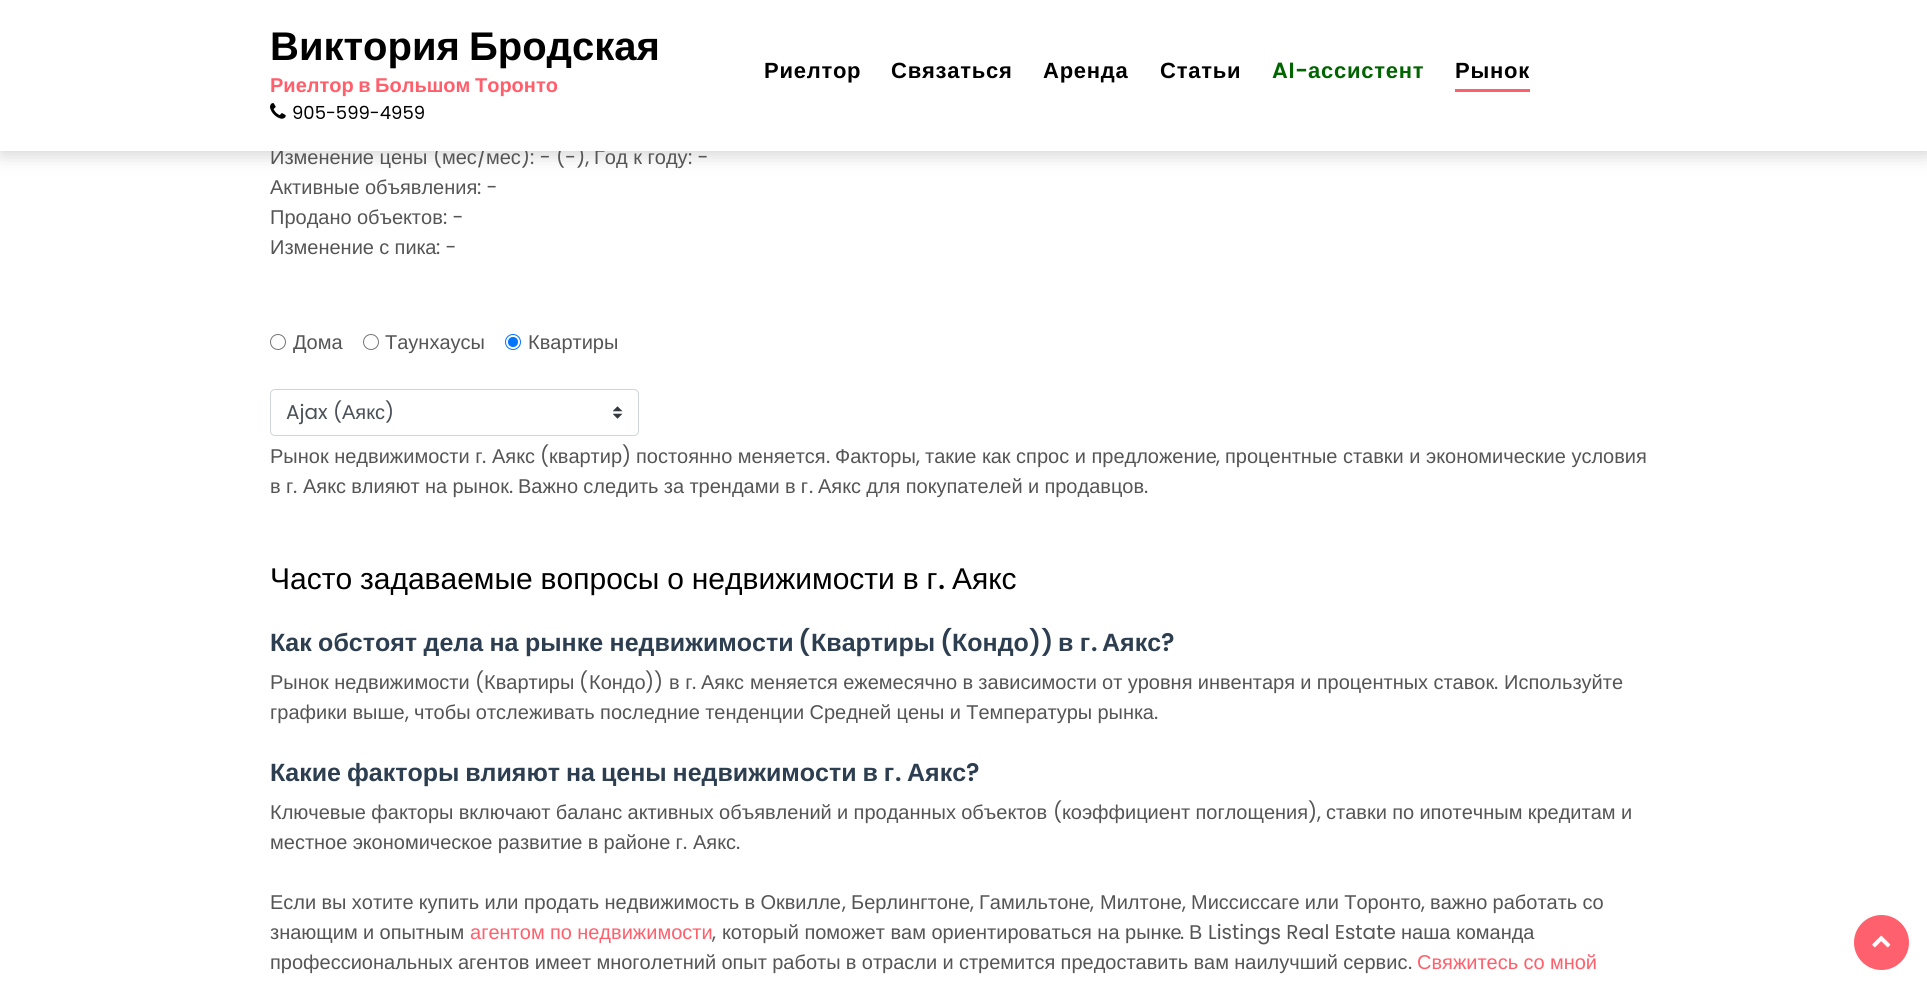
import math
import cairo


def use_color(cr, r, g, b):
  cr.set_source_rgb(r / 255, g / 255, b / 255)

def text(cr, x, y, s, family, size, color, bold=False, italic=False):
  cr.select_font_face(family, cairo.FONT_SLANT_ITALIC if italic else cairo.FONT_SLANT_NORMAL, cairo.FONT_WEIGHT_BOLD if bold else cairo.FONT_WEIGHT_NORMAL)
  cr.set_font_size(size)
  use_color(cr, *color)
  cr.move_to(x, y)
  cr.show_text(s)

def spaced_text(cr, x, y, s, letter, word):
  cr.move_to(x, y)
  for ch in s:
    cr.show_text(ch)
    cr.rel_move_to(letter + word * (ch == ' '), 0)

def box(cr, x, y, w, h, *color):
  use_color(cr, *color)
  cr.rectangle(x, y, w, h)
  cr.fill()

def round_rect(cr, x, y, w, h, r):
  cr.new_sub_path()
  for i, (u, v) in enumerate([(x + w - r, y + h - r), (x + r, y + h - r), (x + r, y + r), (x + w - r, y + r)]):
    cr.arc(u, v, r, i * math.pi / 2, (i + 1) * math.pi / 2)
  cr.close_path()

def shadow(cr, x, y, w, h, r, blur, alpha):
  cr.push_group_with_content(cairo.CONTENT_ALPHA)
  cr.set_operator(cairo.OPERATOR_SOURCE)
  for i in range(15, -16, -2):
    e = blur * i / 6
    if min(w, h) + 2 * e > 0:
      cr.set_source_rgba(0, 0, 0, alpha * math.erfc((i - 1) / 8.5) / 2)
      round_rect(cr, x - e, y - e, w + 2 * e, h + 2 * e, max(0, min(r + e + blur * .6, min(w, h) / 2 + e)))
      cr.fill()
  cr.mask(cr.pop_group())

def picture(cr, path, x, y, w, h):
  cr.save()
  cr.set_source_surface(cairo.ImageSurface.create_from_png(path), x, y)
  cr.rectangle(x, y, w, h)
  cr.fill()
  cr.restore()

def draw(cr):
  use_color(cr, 255, 255, 255)
  cr.paint()
  use_color(cr, 100, 100, 100)
  shadow(cr, 1, 3, 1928, 151, 0, 9.5, 0.3)
  cr.arc(278, 342, 7.5, 0, 2 * math.pi)
  use_color(cr, 118, 118, 118)
  cr.set_line_width(1)
  cr.stroke()
  cr.arc(371, 342, 7.5, 0, 2 * math.pi)
  cr.stroke()
  cr.arc(513, 342, 7.5, 0, 2 * math.pi)
  use_color(cr, 0, 117, 255)
  cr.stroke()
  cr.arc(513, 342, 5, 0, 2 * math.pi)
  cr.fill()
  picture(cr, "img_02.png", 613, 406, 10, 13)
  round_rect(cr, 270.5, 389.5, 368, 46, 4.5)
  use_color(cr, 206, 212, 218)
  cr.stroke()
  use_color(cr, 255, 96, 109)
  cr.arc(1881.5, 942.5, 27.5, 0, 2 * math.pi)
  cr.fill()
  picture(cr, "img_03.png", 1872, 935, 19, 13)
  text(cr, 270, 164, "Изменение цены", "Liberation Sans", 20, (85, 85, 85))
  text(cr, 433, 164, "(", "Poppins", 20, (85, 85, 85))
  text(cr, 442, 164, "мес", "Liberation Sans", 20, (85, 85, 85))
  text(cr, 477, 164, "/", "Poppins", 20, (85, 85, 85))
  text(cr, 486, 164, "мес", "Liberation Sans", 20, (85, 85, 85))
  text(cr, 521, 164, "): - (-),", "Poppins", 20, (85, 85, 85))
  text(cr, 594, 164, "Год к году", "Liberation Sans", 20, (85, 85, 85))
  box(cr, 0, 0, 1927, 151, 255, 255, 255)
  box(cr, 1455, 89, 75, 3, 255, 94, 107)
  cr.select_font_face("Liberation Sans", cairo.FONT_SLANT_NORMAL, cairo.FONT_WEIGHT_BOLD)
  cr.set_font_size(22)
  use_color(cr, 0, 0, 0)
  spaced_text(cr, 1455, 78, "Рынок", 0.75, 0)
  use_color(cr, 0, 100, 0)
  spaced_text(cr, 1308, 78, "ассистент", 0.75, 0)
  cr.select_font_face("Poppins SemiBold")
  spaced_text(cr, 1272, 78, "AI-", 0.75, 0)
  cr.select_font_face("Liberation Sans", cairo.FONT_SLANT_NORMAL, cairo.FONT_WEIGHT_BOLD)
  use_color(cr, 0, 0, 0)
  spaced_text(cr, 1160, 78, "Статьи", 0.75, 0)
  spaced_text(cr, 1043, 78, "Аренда", 0.75, 0)
  spaced_text(cr, 891, 78, "Связаться", 0.75, 0)
  spaced_text(cr, 764, 78, "Риелтор", 0.75, 0)
  text(cr, 292, 119, "905-599-4959", "Poppins", 18, (0, 0, 0))
  picture(cr, "img_01.png", 270, 103, 16, 16)
  cr.select_font_face("Liberation Sans", cairo.FONT_SLANT_NORMAL, cairo.FONT_WEIGHT_BOLD)
  cr.set_font_size(20)
  use_color(cr, 255, 94, 107)
  spaced_text(cr, 270, 92, "Риелтор в Большом Торонто", 0, -1)
  cr.set_font_size(40)
  use_color(cr, 0, 0, 0)
  spaced_text(cr, 270, 60, "Виктория Бродская", 0, -2)
  text(cr, 688, 164, ": -", "Poppins", 20, (85, 85, 85))
  cr.select_font_face("Liberation Sans")
  spaced_text(cr, 270, 194, "Активные объявления", 0, -0.25)
  text(cr, 477, 194, ": -", "Poppins", 20, (85, 85, 85))
  cr.select_font_face("Liberation Sans")
  spaced_text(cr, 270, 224, "Продано объектов", 0, -0.25)
  text(cr, 443, 224, ": -", "Poppins", 20, (85, 85, 85))
  cr.select_font_face("Liberation Sans")
  spaced_text(cr, 270, 254, "Изменение с пика", 0, -0.25)
  text(cr, 436, 254, ": -", "Poppins", 20, (85, 85, 85))
  text(cr, 293, 349, "Дома", "Liberation Sans", 20, (85, 85, 85))
  text(cr, 385, 349, "Таунхаусы", "Liberation Sans", 20, (85, 85, 85))
  text(cr, 528, 349, "Квартиры", "Liberation Sans", 20, (85, 85, 85))
  text(cr, 286, 419, "Ajax (", "Poppins", 20, (73, 80, 87))
  text(cr, 342, 419, "Аякс", "Liberation Sans", 20, (73, 80, 87))
  text(cr, 385, 419, ")", "Poppins", 20, (73, 80, 87))
  text(cr, 270, 463, "Рынок недвижимости г", "Liberation Sans", 20, (85, 85, 85))
  text(cr, 482, 463, ".", "Poppins", 20, (85, 85, 85))
  text(cr, 492, 463, "Аякс", "Liberation Sans", 20, (85, 85, 85))
  text(cr, 540, 463, "(", "Poppins", 20, (85, 85, 85))
  text(cr, 549, 463, "квартир", "Liberation Sans", 20, (85, 85, 85))
  text(cr, 622, 463, ")", "Poppins", 20, (85, 85, 85))
  text(cr, 636, 463, "постоянно меняется", "Liberation Sans", 20, (85, 85, 85))
  text(cr, 826, 463, ".", "Poppins", 20, (85, 85, 85))
  text(cr, 835, 463, "Факторы", "Liberation Sans", 20, (85, 85, 85))
  text(cr, 916, 463, ",", "Poppins", 20, (85, 85, 85))
  text(cr, 925, 463, "такие как спрос и предложение", "Liberation Sans", 20, (85, 85, 85))
  text(cr, 1216, 463, ",", "Poppins", 20, (85, 85, 85))
  text(cr, 1225, 463, "процентные ставки и экономические условия", "Liberation Sans", 20, (85, 85, 85))
  spaced_text(cr, 270, 493, "в г", 0, -0.25)
  text(cr, 293, 493, ".", "Poppins", 20, (85, 85, 85))
  cr.select_font_face("Liberation Sans")
  spaced_text(cr, 303, 493, "Аякс влияют на рынок", 0, -0.25)
  text(cr, 509, 493, ".", "Poppins", 20, (85, 85, 85))
  cr.select_font_face("Liberation Sans")
  spaced_text(cr, 518, 493, "Важно следить за трендами в г", 0, -0.25)
  text(cr, 809, 493, ".", "Poppins", 20, (85, 85, 85))
  cr.select_font_face("Liberation Sans")
  spaced_text(cr, 818, 493, "Аякс для покупателей и продавцов", 0, -0.25)
  text(cr, 1144, 493, ".", "Poppins", 20, (85, 85, 85))
  cr.select_font_face("Liberation Sans")
  cr.set_font_size(30)
  use_color(cr, 0, 0, 0)
  spaced_text(cr, 270, 589, "Часто задаваемые вопросы о недвижимости в г", 0, -0.5)
  text(cr, 938, 589, ".", "Poppins Medium", 30, (0, 0, 0))
  text(cr, 952, 589, "Аякс", "Liberation Sans", 30, (0, 0, 0))
  cr.select_font_face("Liberation Sans", cairo.FONT_SLANT_NORMAL, cairo.FONT_WEIGHT_BOLD)
  cr.set_font_size(25)
  use_color(cr, 44, 62, 80)
  spaced_text(cr, 270, 651, "Как обстоят дела на рынке недвижимости", 0, -0.5)
  text(cr, 798, 651, "(", "Poppins SemiBold", 25, (44, 62, 80))
  text(cr, 811, 651, "Квартиры", "Liberation Sans", 25, (44, 62, 80), bold=True)
  text(cr, 940, 651, "(", "Poppins SemiBold", 25, (44, 62, 80))
  text(cr, 952, 651, "Кондо", "Liberation Sans", 25, (44, 62, 80), bold=True)
  text(cr, 1029, 651, "))", "Poppins SemiBold", 25, (44, 62, 80))
  cr.select_font_face("Liberation Sans", cairo.FONT_SLANT_NORMAL, cairo.FONT_WEIGHT_BOLD)
  spaced_text(cr, 1058, 651, "в г", 0, -0.5)
  text(cr, 1091, 651, ".", "Poppins SemiBold", 25, (44, 62, 80))
  text(cr, 1102, 651, "Аякс", "Liberation Sans", 25, (44, 62, 80), bold=True)
  text(cr, 1161, 651, "?", "Poppins SemiBold", 25, (44, 62, 80))
  text(cr, 270, 689, "Рынок недвижимости", "Liberation Sans", 20, (85, 85, 85))
  text(cr, 475, 689, "(", "Poppins", 20, (85, 85, 85))
  text(cr, 484, 689, "Квартиры", "Liberation Sans", 20, (85, 85, 85))
  text(cr, 579, 689, "(", "Poppins", 20, (85, 85, 85))
  text(cr, 589, 689, "Кондо", "Liberation Sans", 20, (85, 85, 85))
  text(cr, 645, 689, "))", "Poppins", 20, (85, 85, 85))
  text(cr, 669, 689, "в г", "Liberation Sans", 20, (85, 85, 85))
  text(cr, 692, 689, ".", "Poppins", 20, (85, 85, 85))
  text(cr, 701, 689, "Аякс", "Liberation Sans", 20, (85, 85, 85))
  spaced_text(cr, 750, 689, "меняется ежемесячно в зависимости от уровня инвентаря и процентных ставок", 0, -0.25)
  text(cr, 1494, 689, ".", "Poppins", 20, (85, 85, 85))
  text(cr, 1504, 689, "Используйте", "Liberation Sans", 20, (85, 85, 85))
  spaced_text(cr, 270, 719, "графики выше", 0, -0.25)
  text(cr, 405, 719, ",", "Poppins", 20, (85, 85, 85))
  cr.select_font_face("Liberation Sans")
  spaced_text(cr, 414, 719, "чтобы отслеживать последние тенденции Средней цены и Температуры рынка", 0, -0.25)
  text(cr, 1154, 719, ".", "Poppins", 20, (85, 85, 85))
  cr.select_font_face("Liberation Sans", cairo.FONT_SLANT_NORMAL, cairo.FONT_WEIGHT_BOLD)
  cr.set_font_size(25)
  use_color(cr, 44, 62, 80)
  spaced_text(cr, 270, 781, "Какие факторы влияют на цены недвижимости в г", 0, -1)
  text(cr, 895, 781, ".", "Poppins SemiBold", 25, (44, 62, 80))
  text(cr, 907, 781, "Аякс", "Liberation Sans", 25, (44, 62, 80), bold=True)
  text(cr, 966, 781, "?", "Poppins SemiBold", 25, (44, 62, 80))
  cr.select_font_face("Liberation Sans")
  cr.set_font_size(20)
  use_color(cr, 85, 85, 85)
  spaced_text(cr, 270, 819, "Ключевые факторы включают баланс активных объявлений и проданных объектов", 0, -0.25)
  text(cr, 1053, 819, "(", "Poppins", 20, (85, 85, 85))
  cr.select_font_face("Liberation Sans")
  spaced_text(cr, 1062, 819, "коэффициент поглощения", 0, -0.25)
  text(cr, 1308, 819, "),", "Poppins", 20, (85, 85, 85))
  cr.select_font_face("Liberation Sans")
  spaced_text(cr, 1326, 819, "ставки по ипотечным кредитам и", 0, -0.25)
  spaced_text(cr, 270, 849, "местное экономическое развитие в районе г", 0, -0.25)
  text(cr, 683, 849, ".", "Poppins", 20, (85, 85, 85))
  text(cr, 693, 849, "Аякс", "Liberation Sans", 20, (85, 85, 85))
  text(cr, 736, 849, ".", "Poppins", 20, (85, 85, 85))
  cr.select_font_face("Liberation Sans")
  spaced_text(cr, 270, 909, "Если вы хотите купить или продать недвижимость в Оквилле", 0, -0.25)
  text(cr, 842, 909, ",", "Poppins", 20, (85, 85, 85))
  text(cr, 851, 909, "Берлингтоне", "Liberation Sans", 20, (85, 85, 85))
  text(cr, 970, 909, ",", "Poppins", 20, (85, 85, 85))
  text(cr, 979, 909, "Гамильтоне", "Liberation Sans", 20, (85, 85, 85))
  text(cr, 1090, 909, ",", "Poppins", 20, (85, 85, 85))
  text(cr, 1100, 909, "Милтоне", "Liberation Sans", 20, (85, 85, 85))
  text(cr, 1182, 909, ",", "Poppins", 20, (85, 85, 85))
  cr.select_font_face("Liberation Sans")
  spaced_text(cr, 1191, 909, "Миссиссаге или Торонто", 0, -0.25)
  text(cr, 1421, 909, ",", "Poppins", 20, (85, 85, 85))
  cr.select_font_face("Liberation Sans")
  spaced_text(cr, 1430, 909, "важно работать со", 0, -0.25)
  spaced_text(cr, 270, 939, "знающим и опытным", 0, -0.25)
  use_color(cr, 255, 94, 107)
  spaced_text(cr, 470, 939, "агентом по недвижимости", 0, -0.25)
  text(cr, 712, 939, ",", "Poppins", 20, (85, 85, 85))
  text(cr, 722, 939, "который поможет вам ориентироваться на рынке", "Liberation Sans", 20, (85, 85, 85))
  text(cr, 1180, 939, ".", "Poppins", 20, (85, 85, 85))
  text(cr, 1189, 939, "В", "Liberation Sans", 20, (85, 85, 85))
  text(cr, 1208, 939, "Listings Real Estate", "Poppins", 20, (85, 85, 85))
  text(cr, 1401, 939, "наша команда", "Liberation Sans", 20, (85, 85, 85))
  spaced_text(cr, 270, 969, "профессиональных агентов имеет многолетний опыт работы в отрасли и стремится предоставить вам наилучший сервис", 0, -0.25)
  text(cr, 1408, 969, ".", "Poppins", 20, (85, 85, 85))
  cr.select_font_face("Liberation Sans")
  use_color(cr, 255, 94, 107)
  spaced_text(cr, 1417, 969, "Свяжитесь со мной", 0, -0.25)


surface = cairo.ImageSurface(cairo.FORMAT_RGB24, 1927, 988)
cr = cairo.Context(surface)
options = cairo.FontOptions()
options.set_hint_metrics(cairo.HINT_METRICS_OFF)
options.set_hint_style(cairo.HINT_STYLE_NONE)
cr.set_font_options(options)
cr.set_miter_limit(4)
draw(cr)
surface.write_to_png("out.png")
